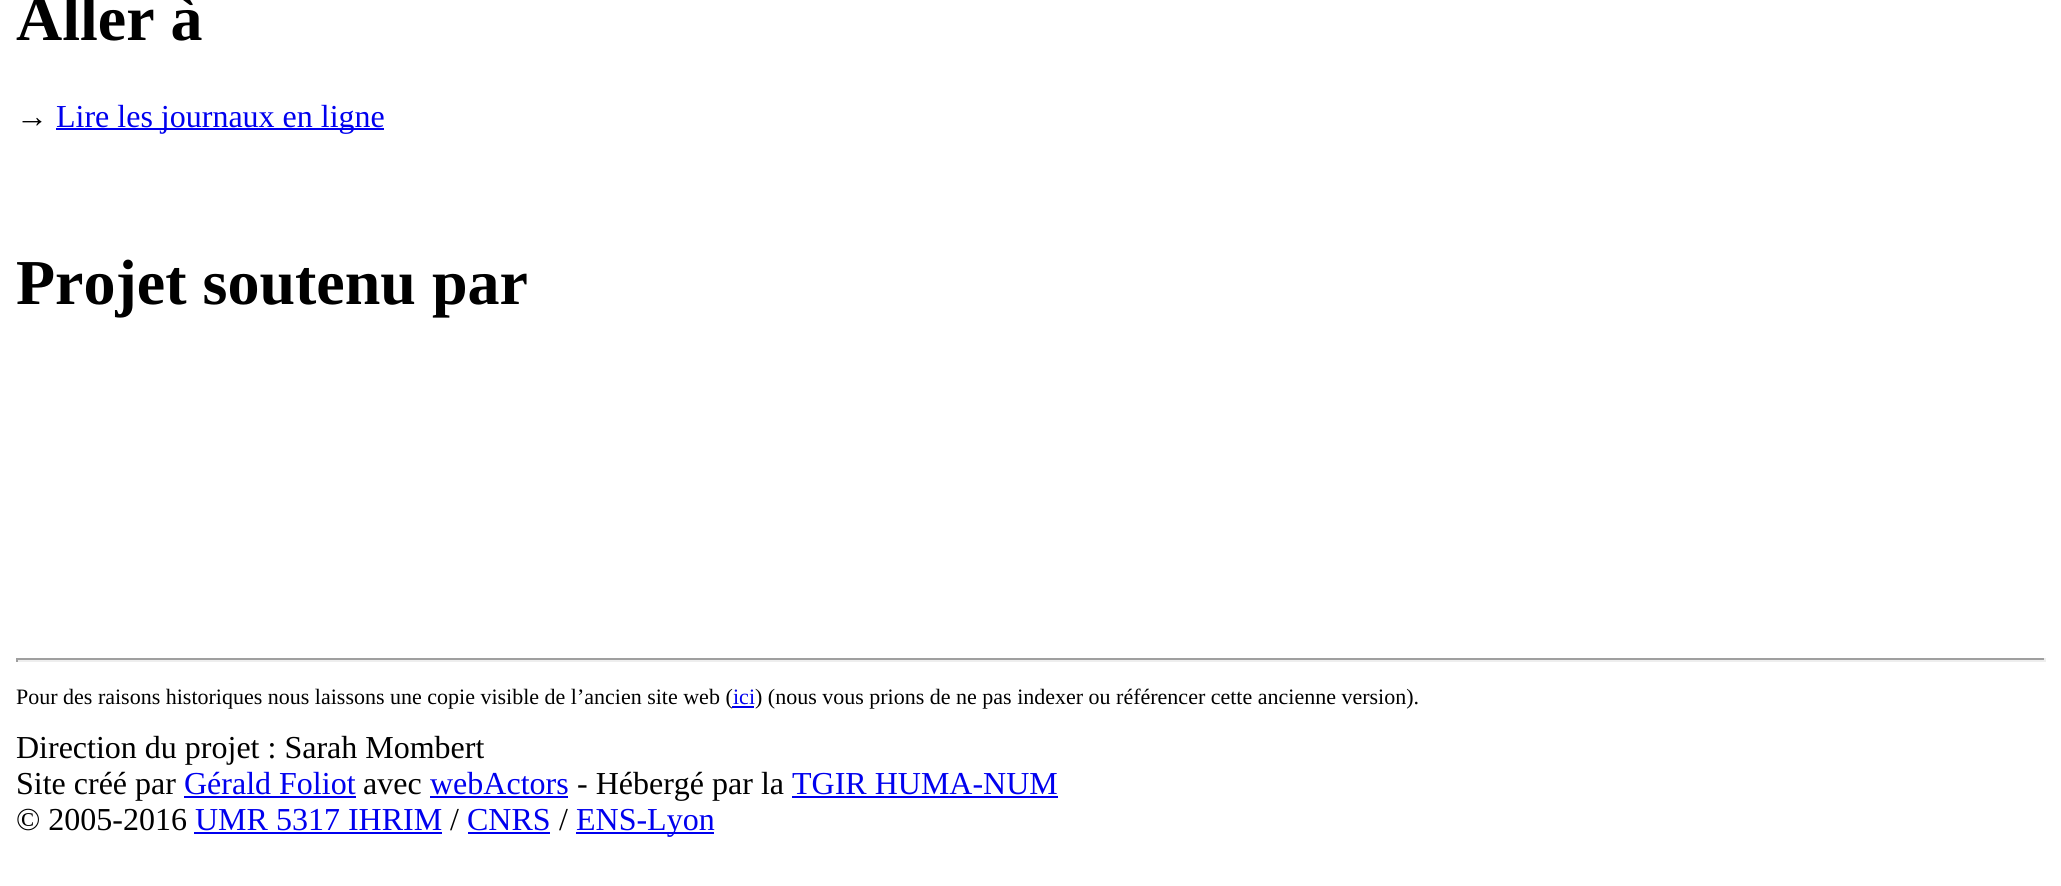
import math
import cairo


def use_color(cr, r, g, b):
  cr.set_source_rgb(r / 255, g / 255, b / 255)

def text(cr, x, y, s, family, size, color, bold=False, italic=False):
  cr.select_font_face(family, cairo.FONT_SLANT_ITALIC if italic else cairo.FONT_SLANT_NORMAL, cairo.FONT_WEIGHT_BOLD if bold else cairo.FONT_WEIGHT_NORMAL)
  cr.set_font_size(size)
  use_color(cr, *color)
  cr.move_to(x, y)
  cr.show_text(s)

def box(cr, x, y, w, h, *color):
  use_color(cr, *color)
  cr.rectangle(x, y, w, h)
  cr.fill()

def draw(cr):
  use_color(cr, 255, 255, 255)
  cr.paint()
  box(cr, 56, 128, 328, 2, 0, 0, 238)
  box(cr, 16, 658, 2030, 2, 159, 159, 159)
  box(cr, 2044, 658, 2, 4, 238, 238, 238)
  box(cr, 16, 660, 2030, 2, 238, 238, 238)
  box(cr, 16, 658, 2, 4, 159, 159, 159)
  box(cr, 732, 706, 22, 2, 0, 0, 238)
  box(cr, 184, 796, 172, 2, 0, 0, 238)
  box(cr, 430, 796, 138, 2, 0, 0, 238)
  box(cr, 792, 796, 266, 2, 0, 0, 238)
  box(cr, 194, 832, 248, 2, 0, 0, 238)
  box(cr, 468, 832, 82, 2, 0, 0, 238)
  box(cr, 576, 832, 138, 2, 0, 0, 238)
  text(cr, 16, 40, "Aller à", "Liberation Serif", 64, (0, 0, 0), bold=True)
  text(cr, 16, 127, "→", "Liberation Serif", 32, (0, 0, 0))
  text(cr, 56, 127, "Lire les journaux en ligne", "Liberation Serif", 32, (0, 0, 238))
  text(cr, 16, 304, "Projet soutenu par", "Liberation Serif", 64, (0, 0, 0), bold=True)
  text(cr, 16, 704, "Pour des raisons historiques nous laissons une copie visible de l’ancien site web (", "Liberation Serif", 22, (0, 0, 0))
  text(cr, 733, 704, "ici", "Liberation Serif", 22, (0, 0, 238))
  text(cr, 755, 704, ") (nous vous prions de ne pas indexer ou référencer cette ancienne version).", "Liberation Serif", 22, (0, 0, 0))
  text(cr, 16, 758, "Direction du projet : Sarah Mombert", "Liberation Serif", 32, (0, 0, 0))
  text(cr, 16, 794, "Site créé par", "Liberation Serif", 32, (0, 0, 0))
  text(cr, 184, 794, "Gérald Foliot", "Liberation Serif", 32, (0, 0, 238))
  text(cr, 363, 794, "avec", "Liberation Serif", 32, (0, 0, 0))
  text(cr, 430, 794, "webActors", "Liberation Serif", 32, (0, 0, 238))
  text(cr, 577, 794, "- Hébergé par la", "Liberation Serif", 32, (0, 0, 0))
  text(cr, 792, 794, "TGIR HUMA-NUM", "Liberation Serif", 32, (0, 0, 238))
  text(cr, 16, 830, "© 2005-2016", "Liberation Serif", 32, (0, 0, 0))
  text(cr, 195, 830, "UMR 5317 IHRIM", "Liberation Serif", 32, (0, 0, 238))
  text(cr, 450, 830, "/", "Liberation Serif", 32, (0, 0, 0))
  text(cr, 467, 830, "CNRS", "Liberation Serif", 32, (0, 0, 238))
  text(cr, 559, 830, "/", "Liberation Serif", 32, (0, 0, 0))
  text(cr, 576, 830, "ENS-Lyon", "Liberation Serif", 32, (0, 0, 238))


surface = cairo.ImageSurface(cairo.FORMAT_RGB24, 2061, 886)
cr = cairo.Context(surface)
options = cairo.FontOptions()
options.set_hint_metrics(cairo.HINT_METRICS_OFF)
options.set_hint_style(cairo.HINT_STYLE_NONE)
cr.set_font_options(options)
cr.set_miter_limit(4)
draw(cr)
surface.write_to_png("out.png")
